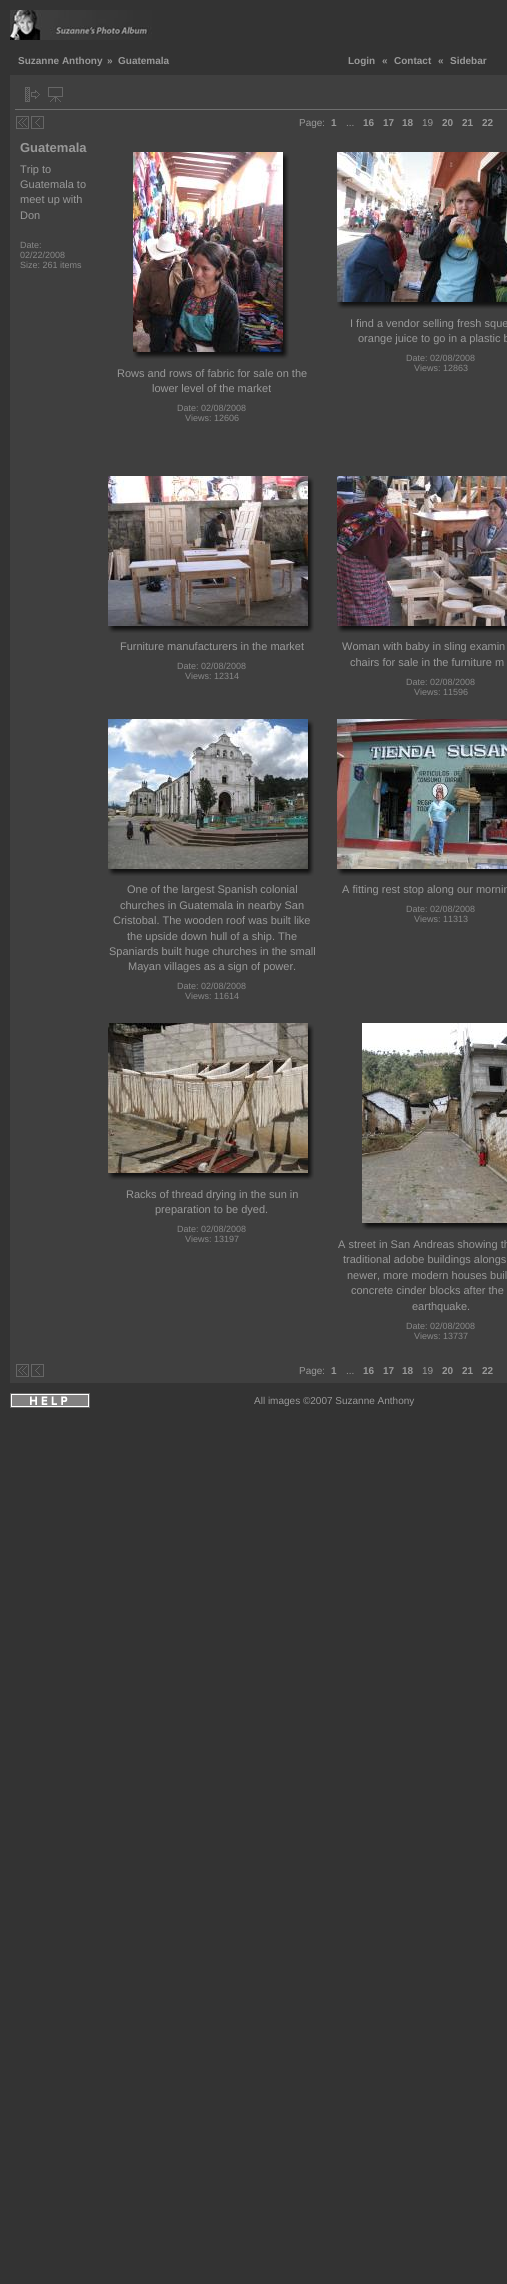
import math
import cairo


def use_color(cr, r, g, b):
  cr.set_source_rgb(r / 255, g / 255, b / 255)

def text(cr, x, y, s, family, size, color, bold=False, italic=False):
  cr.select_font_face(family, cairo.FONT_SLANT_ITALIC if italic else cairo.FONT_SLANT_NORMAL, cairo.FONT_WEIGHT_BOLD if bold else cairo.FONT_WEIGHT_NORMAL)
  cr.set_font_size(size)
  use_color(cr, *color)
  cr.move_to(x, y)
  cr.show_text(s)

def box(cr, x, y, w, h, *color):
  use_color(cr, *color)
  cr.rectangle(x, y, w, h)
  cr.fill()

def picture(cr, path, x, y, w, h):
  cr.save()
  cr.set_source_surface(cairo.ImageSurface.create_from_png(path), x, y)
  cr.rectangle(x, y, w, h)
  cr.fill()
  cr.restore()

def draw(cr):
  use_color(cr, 51, 51, 51)
  cr.paint()
  picture(cr, "img_01.png", 10, 10, 142, 30)
  box(cr, 10, 75, 497, 1308, 63, 63, 63)
  box(cr, 15, 109, 492, 1, 111, 111, 111)
  picture(cr, "img_02.png", 25, 87, 15, 15)
  picture(cr, "img_03.png", 48, 87, 15, 15)
  picture(cr, "img_04.png", 16, 116, 13, 13)
  picture(cr, "img_05.png", 31, 116, 13, 13)
  picture(cr, "img_06.png", 337, 152, 170, 150)
  picture(cr, "img_07.png", 337, 302, 9, 7)
  picture(cr, "img_08.png", 346, 302, 161, 7)
  picture(cr, "img_09.png", 133, 152, 150, 200)
  picture(cr, "img_10.png", 283, 153, 6, 9)
  picture(cr, "img_11.png", 283, 162, 6, 190)
  picture(cr, "img_07.png", 133, 352, 9, 7)
  picture(cr, "img_12.png", 142, 352, 141, 7)
  picture(cr, "img_13.png", 283, 352, 6, 7)
  picture(cr, "img_14.png", 108, 476, 200, 150)
  picture(cr, "img_10.png", 308, 477, 6, 9)
  picture(cr, "img_15.png", 308, 486, 6, 140)
  picture(cr, "img_07.png", 108, 626, 9, 7)
  picture(cr, "img_16.png", 117, 626, 191, 7)
  picture(cr, "img_13.png", 308, 626, 6, 7)
  picture(cr, "img_17.png", 337, 476, 170, 150)
  picture(cr, "img_07.png", 337, 626, 9, 7)
  picture(cr, "img_08.png", 346, 626, 161, 7)
  picture(cr, "img_18.png", 108, 719, 200, 150)
  picture(cr, "img_10.png", 308, 720, 6, 9)
  picture(cr, "img_15.png", 308, 729, 6, 140)
  picture(cr, "img_07.png", 108, 869, 9, 7)
  picture(cr, "img_16.png", 117, 869, 191, 7)
  picture(cr, "img_13.png", 308, 869, 6, 7)
  picture(cr, "img_19.png", 337, 719, 170, 150)
  picture(cr, "img_07.png", 337, 869, 9, 7)
  picture(cr, "img_08.png", 346, 869, 161, 7)
  picture(cr, "img_20.png", 108, 1023, 200, 150)
  picture(cr, "img_10.png", 308, 1024, 6, 9)
  picture(cr, "img_15.png", 308, 1033, 6, 140)
  picture(cr, "img_07.png", 108, 1173, 9, 7)
  picture(cr, "img_16.png", 117, 1173, 191, 7)
  picture(cr, "img_13.png", 308, 1173, 6, 7)
  picture(cr, "img_21.png", 362, 1023, 145, 200)
  picture(cr, "img_07.png", 362, 1223, 9, 7)
  picture(cr, "img_22.png", 371, 1223, 136, 7)
  picture(cr, "img_04.png", 16, 1364, 13, 13)
  picture(cr, "img_05.png", 31, 1364, 13, 13)
  picture(cr, "img_23.png", 10, 1393, 80, 15)
  text(cr, 18, 64, "Suzanne Anthony", "Liberation Sans", 10, (153, 153, 153), bold=True)
  text(cr, 107, 64, "»", "Liberation Sans", 10, (153, 153, 153), bold=True)
  text(cr, 118, 64, "Guatemala", "Liberation Sans", 10, (153, 153, 153), bold=True)
  text(cr, 348, 64, "Login", "Liberation Sans", 10, (153, 153, 153), bold=True)
  text(cr, 382, 64, "«", "Liberation Sans", 10, (153, 153, 153), bold=True)
  text(cr, 394, 64, "Contact", "Liberation Sans", 10, (153, 153, 153), bold=True)
  text(cr, 438, 64, "«", "Liberation Sans", 10, (153, 153, 153), bold=True)
  text(cr, 450, 64, "Sidebar", "Liberation Sans", 10, (153, 153, 153), bold=True)
  text(cr, 299, 126, "Page:", "Liberation Sans", 10, (153, 153, 153))
  text(cr, 331, 126, "1", "Liberation Sans", 10, (153, 153, 153), bold=True)
  text(cr, 346, 126, "...", "Liberation Sans", 10, (153, 153, 153))
  text(cr, 363, 126, "16", "Liberation Sans", 10, (153, 153, 153), bold=True)
  text(cr, 383, 126, "17", "Liberation Sans", 10, (153, 153, 153), bold=True)
  text(cr, 402, 126, "18", "Liberation Sans", 10, (153, 153, 153), bold=True)
  text(cr, 422, 126, "19", "Liberation Sans", 10, (153, 153, 153))
  text(cr, 442, 126, "20", "Liberation Sans", 10, (153, 153, 153), bold=True)
  text(cr, 462, 126, "21", "Liberation Sans", 10, (153, 153, 153), bold=True)
  text(cr, 482, 126, "22", "Liberation Sans", 10, (153, 153, 153), bold=True)
  text(cr, 20, 152, "Guatemala", "Liberation Sans", 13, (153, 153, 153), bold=True)
  text(cr, 20, 173, "Trip to", "Liberation Sans", 11, (153, 153, 153))
  text(cr, 20, 188, "Guatemala to", "Liberation Sans", 11, (153, 153, 153))
  text(cr, 20, 203, "meet up with", "Liberation Sans", 11, (153, 153, 153))
  text(cr, 20, 219, "Don", "Liberation Sans", 11, (153, 153, 153))
  text(cr, 20, 248, "Date:", "Liberation Sans", 9, (136, 136, 136))
  text(cr, 20, 258, "02/22/2008", "Liberation Sans", 9, (136, 136, 136))
  text(cr, 20, 268, "Size: 261 items", "Liberation Sans", 9, (136, 136, 136))
  text(cr, 350, 327, "I find a vendor selling fresh sque", "Liberation Sans", 11, (153, 153, 153))
  text(cr, 358, 342, "orange juice to go in a plastic b", "Liberation Sans", 11, (153, 153, 153))
  text(cr, 406, 361, "Date: 02/08/2008", "Liberation Sans", 9, (136, 136, 136))
  text(cr, 414, 371, "Views: 12863", "Liberation Sans", 9, (136, 136, 136))
  text(cr, 117, 377, "Rows and rows of fabric for sale on the", "Liberation Sans", 11, (153, 153, 153))
  text(cr, 152, 392, "lower level of the market", "Liberation Sans", 11, (153, 153, 153))
  text(cr, 177, 411, "Date: 02/08/2008", "Liberation Sans", 9, (136, 136, 136))
  text(cr, 185, 421, "Views: 12606", "Liberation Sans", 9, (136, 136, 136))
  text(cr, 120, 650, "Furniture manufacturers in the market", "Liberation Sans", 11, (153, 153, 153))
  text(cr, 177, 669, "Date: 02/08/2008", "Liberation Sans", 9, (136, 136, 136))
  text(cr, 185, 679, "Views: 12314", "Liberation Sans", 9, (136, 136, 136))
  text(cr, 342, 650, "Woman with baby in sling examin", "Liberation Sans", 11, (153, 153, 153))
  text(cr, 350, 666, "chairs for sale in the furniture m", "Liberation Sans", 11, (153, 153, 153))
  text(cr, 406, 685, "Date: 02/08/2008", "Liberation Sans", 9, (136, 136, 136))
  text(cr, 414, 695, "Views: 11596", "Liberation Sans", 9, (136, 136, 136))
  text(cr, 127, 893, "One of the largest Spanish colonial", "Liberation Sans", 11, (153, 153, 153))
  text(cr, 120, 909, "churches in Guatemala in nearby San", "Liberation Sans", 11, (153, 153, 153))
  text(cr, 113, 924, "Cristobal. The wooden roof was built like", "Liberation Sans", 11, (153, 153, 153))
  text(cr, 127, 940, "the upside down hull of a ship. The", "Liberation Sans", 11, (153, 153, 153))
  text(cr, 109, 955, "Spaniards built huge churches in the small", "Liberation Sans", 11, (153, 153, 153))
  text(cr, 128, 970, "Mayan villages as a sign of power.", "Liberation Sans", 11, (153, 153, 153))
  text(cr, 177, 989, "Date: 02/08/2008", "Liberation Sans", 9, (136, 136, 136))
  text(cr, 185, 999, "Views: 11614", "Liberation Sans", 9, (136, 136, 136))
  text(cr, 342, 893, "A fitting rest stop along our mornin", "Liberation Sans", 11, (153, 153, 153))
  text(cr, 406, 912, "Date: 02/08/2008", "Liberation Sans", 9, (136, 136, 136))
  text(cr, 414, 922, "Views: 11313", "Liberation Sans", 9, (136, 136, 136))
  text(cr, 126, 1198, "Racks of thread drying in the sun in", "Liberation Sans", 11, (153, 153, 153))
  text(cr, 155, 1213, "preparation to be dyed.", "Liberation Sans", 11, (153, 153, 153))
  text(cr, 177, 1232, "Date: 02/08/2008", "Liberation Sans", 9, (136, 136, 136))
  text(cr, 185, 1242, "Views: 13197", "Liberation Sans", 9, (136, 136, 136))
  text(cr, 338, 1248, "A street in San Andreas showing th", "Liberation Sans", 11, (153, 153, 153))
  text(cr, 343, 1263, "traditional adobe buildings alongs", "Liberation Sans", 11, (153, 153, 153))
  text(cr, 347, 1279, "newer, more modern houses buil", "Liberation Sans", 11, (153, 153, 153))
  text(cr, 351, 1294, "concrete cinder blocks after the", "Liberation Sans", 11, (153, 153, 153))
  text(cr, 412, 1310, "earthquake.", "Liberation Sans", 11, (153, 153, 153))
  text(cr, 406, 1329, "Date: 02/08/2008", "Liberation Sans", 9, (136, 136, 136))
  text(cr, 414, 1339, "Views: 13737", "Liberation Sans", 9, (136, 136, 136))
  text(cr, 299, 1374, "Page:", "Liberation Sans", 10, (153, 153, 153))
  text(cr, 331, 1374, "1", "Liberation Sans", 10, (153, 153, 153), bold=True)
  text(cr, 346, 1374, "...", "Liberation Sans", 10, (153, 153, 153))
  text(cr, 363, 1374, "16", "Liberation Sans", 10, (153, 153, 153), bold=True)
  text(cr, 383, 1374, "17", "Liberation Sans", 10, (153, 153, 153), bold=True)
  text(cr, 402, 1374, "18", "Liberation Sans", 10, (153, 153, 153), bold=True)
  text(cr, 422, 1374, "19", "Liberation Sans", 10, (153, 153, 153))
  text(cr, 442, 1374, "20", "Liberation Sans", 10, (153, 153, 153), bold=True)
  text(cr, 462, 1374, "21", "Liberation Sans", 10, (153, 153, 153), bold=True)
  text(cr, 482, 1374, "22", "Liberation Sans", 10, (153, 153, 153), bold=True)
  text(cr, 254, 1404, "All images ©2007 Suzanne Anthony", "Liberation Sans", 10, (153, 153, 153))


surface = cairo.ImageSurface(cairo.FORMAT_RGB24, 507, 2284)
cr = cairo.Context(surface)
options = cairo.FontOptions()
options.set_hint_metrics(cairo.HINT_METRICS_OFF)
options.set_hint_style(cairo.HINT_STYLE_NONE)
cr.set_font_options(options)
cr.set_miter_limit(4)
draw(cr)
surface.write_to_png("out.png")
